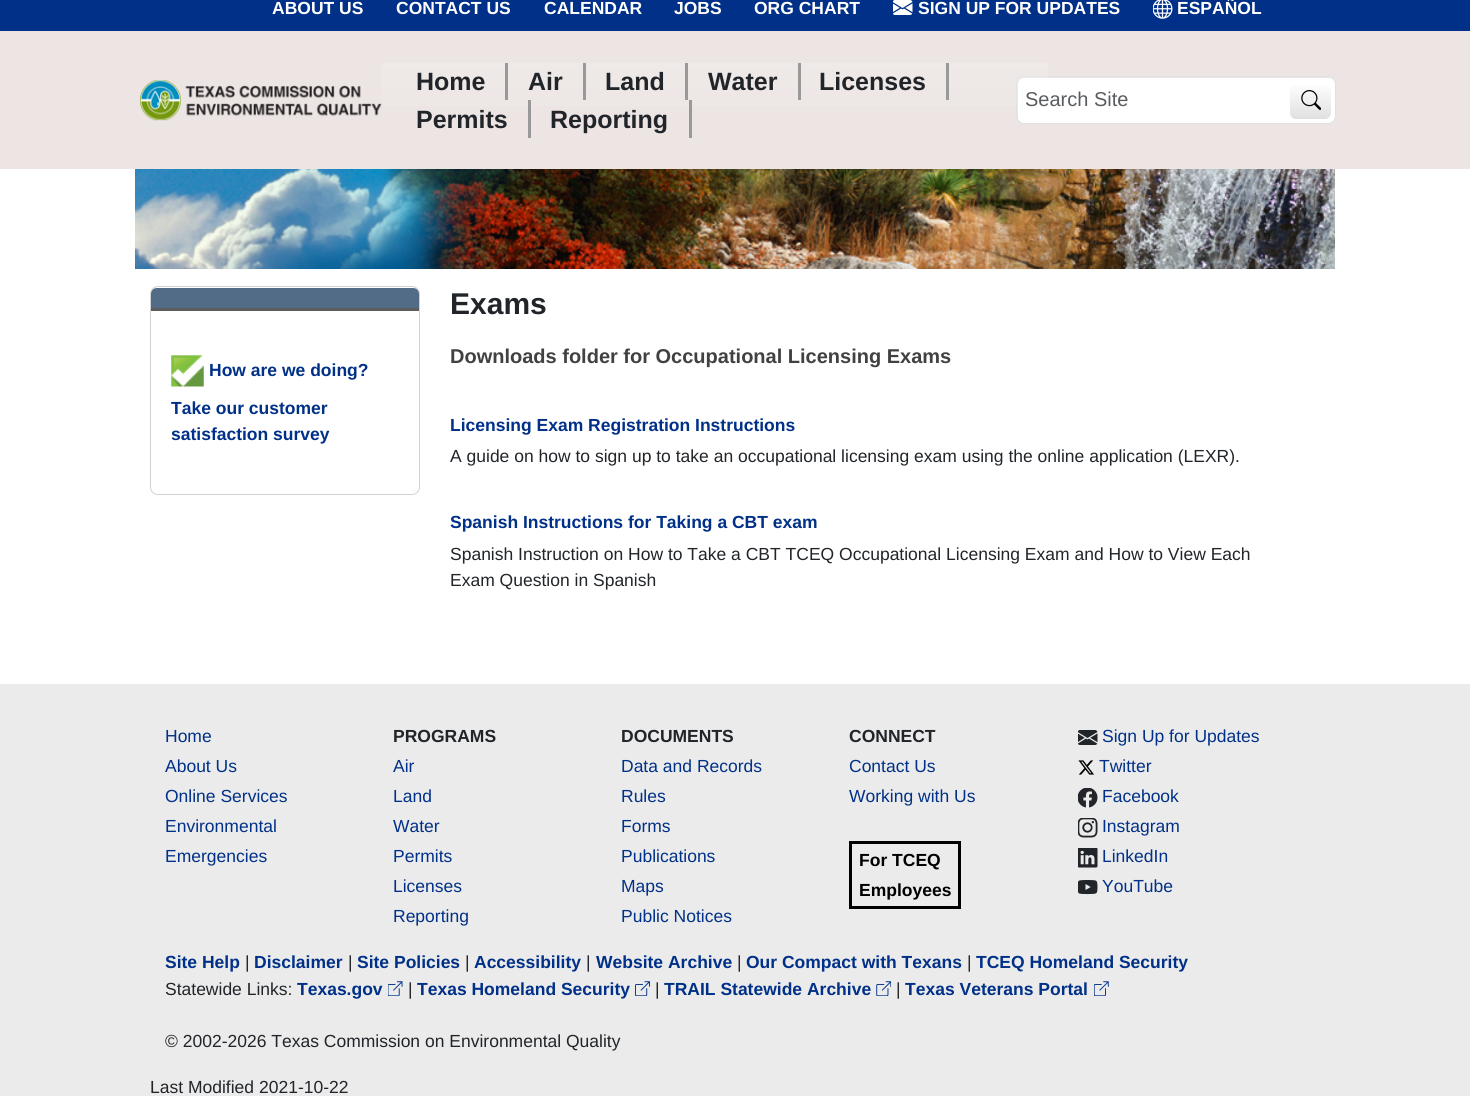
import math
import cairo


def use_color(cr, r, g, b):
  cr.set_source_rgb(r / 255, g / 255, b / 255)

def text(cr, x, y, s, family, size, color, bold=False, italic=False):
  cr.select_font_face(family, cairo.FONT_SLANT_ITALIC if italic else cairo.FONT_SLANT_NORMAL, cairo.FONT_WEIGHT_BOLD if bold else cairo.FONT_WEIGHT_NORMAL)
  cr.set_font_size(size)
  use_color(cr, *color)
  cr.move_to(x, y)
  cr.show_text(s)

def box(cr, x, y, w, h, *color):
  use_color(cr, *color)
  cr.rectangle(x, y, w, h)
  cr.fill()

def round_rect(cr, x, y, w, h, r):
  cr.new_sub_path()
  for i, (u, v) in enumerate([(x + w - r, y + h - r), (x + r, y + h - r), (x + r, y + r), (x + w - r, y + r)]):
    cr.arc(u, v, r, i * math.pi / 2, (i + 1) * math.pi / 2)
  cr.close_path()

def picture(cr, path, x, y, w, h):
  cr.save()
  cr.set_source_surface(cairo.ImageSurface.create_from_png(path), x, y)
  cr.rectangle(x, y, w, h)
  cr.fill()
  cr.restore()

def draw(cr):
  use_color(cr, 255, 255, 255)
  cr.paint()
  box(cr, 0, 0, 1470, 31, 0, 48, 135)
  picture(cr, "img_01.png", 893, 0, 20, 15)
  picture(cr, "img_02.png", 1153, 0, 20, 19)
  box(cr, 0, 31, 1470, 138, 236, 229, 228)
  picture(cr, "img_03.png", 140, 80, 242, 41)
  use_color(cr, 255, 255, 255)
  round_rect(cr, 1018, 78, 317, 45, 6)
  cr.fill()
  round_rect(cr, 1016.5, 76.5, 319, 47, 7.5)
  use_color(cr, 222, 226, 230)
  cr.set_line_width(1)
  cr.stroke()
  gradient = cairo.LinearGradient(714, 62, 714, 138)
  gradient.add_color_stop_rgba(0, 1, 1, 1, 0.15)
  gradient.add_color_stop_rgba(1, 1, 1, 1, 0)
  cr.set_source(gradient)
  cr.rectangle(381, 63, 667, 43)
  cr.fill()
  box(cr, 505, 63, 3, 37, 153, 153, 153)
  box(cr, 583, 63, 3, 37, 153, 153, 153)
  box(cr, 685, 63, 3, 37, 153, 153, 153)
  box(cr, 798, 63, 3, 37, 153, 153, 153)
  box(cr, 946, 63, 3, 37, 153, 153, 153)
  box(cr, 528, 100, 3, 38, 153, 153, 153)
  box(cr, 689, 100, 3, 38, 153, 153, 153)
  gradient = cairo.LinearGradient(1311, 83, 1311, 119)
  gradient.add_color_stop_rgba(0, 1, 1, 1, 1)
  gradient.add_color_stop_rgba(1, 0.878, 0.878, 0.878, 1)
  cr.set_source(gradient)
  round_rect(cr, 1290, 83, 41, 36, 6)
  cr.fill()
  picture(cr, "img_04.png", 1301, 90, 20, 20)
  picture(cr, "img_05.png", 135, 169, 1200, 100)
  round_rect(cr, 150.5, 286.5, 269, 208, 7.5)
  use_color(cr, 210, 210, 210)
  cr.stroke()
  use_color(cr, 82, 107, 135)
  cr.new_path()
  cr.move_to(157, 288)
  cr.line_to(413, 288)
  cr.curve_to(416.5, 288, 419, 290.5, 419, 294)
  cr.line_to(419, 310)
  cr.line_to(151, 310)
  cr.line_to(151, 294)
  cr.curve_to(151, 290.5, 153.5, 288, 157, 288)
  cr.close_path()
  cr.fill()
  box(cr, 151, 308, 268, 3, 93, 93, 93)
  picture(cr, "img_06.png", 171, 355, 33, 32)
  box(cr, 0, 684, 1470, 412, 235, 235, 235)
  cr.rectangle(850.5, 842.5, 109, 65)
  use_color(cr, 0, 0, 0)
  cr.set_line_width(3)
  cr.stroke()
  picture(cr, "img_07.png", 1078, 730, 20, 15)
  picture(cr, "img_08.png", 1078, 760, 16, 15)
  picture(cr, "img_09.png", 1078, 788, 20, 20)
  picture(cr, "img_10.png", 1078, 818, 20, 20)
  picture(cr, "img_11.png", 1078, 848, 20, 20)
  picture(cr, "img_12.png", 1078, 880, 20, 15)
  picture(cr, "img_13.png", 388, 981, 15, 15)
  picture(cr, "img_14.png", 635, 981, 15, 15)
  picture(cr, "img_15.png", 876, 981, 15, 15)
  picture(cr, "img_16.png", 1094, 981, 15, 15)
  text(cr, 272, 14, "ABOUT US", "Liberation Sans", 17.5, (255, 255, 255), bold=True)
  text(cr, 396, 14, "CONTACT US", "Liberation Sans", 17.5, (255, 255, 255), bold=True)
  text(cr, 544, 14, "CALENDAR", "Liberation Sans", 17.5, (255, 255, 255), bold=True)
  text(cr, 674, 14, "JOBS", "Liberation Sans", 17.5, (255, 255, 255), bold=True)
  text(cr, 754, 14, "ORG CHART", "Liberation Sans", 17.5, (255, 255, 255), bold=True)
  text(cr, 918, 14, "SIGN UP FOR UPDATES", "Liberation Sans", 17.5, (255, 255, 255), bold=True)
  text(cr, 1177, 14, "ESPAÑOL", "Liberation Sans", 17.5, (255, 255, 255), bold=True)
  text(cr, 416, 90, "Home", "Liberation Sans", 25, (33, 37, 41), bold=True)
  text(cr, 528, 90, "Air", "Liberation Sans", 25, (33, 37, 41), bold=True)
  text(cr, 605, 90, "Land", "Liberation Sans", 25, (33, 37, 41), bold=True)
  text(cr, 708, 90, "Water", "Liberation Sans", 25, (33, 37, 41), bold=True)
  text(cr, 819, 90, "Licenses", "Liberation Sans", 25, (33, 37, 41), bold=True)
  text(cr, 416, 128, "Permits", "Liberation Sans", 25, (33, 37, 41), bold=True)
  text(cr, 550, 128, "Reporting", "Liberation Sans", 25, (33, 37, 41), bold=True)
  text(cr, 1025, 106, "Search Site", "Liberation Sans", 20, (89, 92, 95))
  text(cr, 209, 376, "How are we doing?", "Liberation Sans", 17.5, (0, 48, 135), bold=True)
  text(cr, 171, 414, "Take our customer", "Liberation Sans", 17.5, (0, 48, 135), bold=True)
  text(cr, 171, 440, "satisfaction survey", "Liberation Sans", 17.5, (0, 48, 135), bold=True)
  text(cr, 450, 314, "Exams", "Liberation Sans", 30, (33, 37, 41), bold=True)
  text(cr, 450, 363, "Downloads folder for Occupational Licensing Exams", "Liberation Sans", 20, (65, 65, 65), bold=True)
  text(cr, 450, 431, "Licensing Exam Registration Instructions", "Liberation Sans", 17.5, (0, 48, 135), bold=True)
  text(cr, 450, 462, "A guide on how to sign up to take an occupational licensing exam using the online application (LEXR).", "Liberation Sans", 17.5, (33, 37, 41))
  text(cr, 450, 528, "Spanish Instructions for Taking a CBT exam", "Liberation Sans", 17.5, (0, 48, 135), bold=True)
  text(cr, 450, 560, "Spanish Instruction on How to Take a CBT TCEQ Occupational Licensing Exam and How to View Each", "Liberation Sans", 17.5, (33, 37, 41))
  text(cr, 450, 586, "Exam Question in Spanish", "Liberation Sans", 17.5, (33, 37, 41))
  text(cr, 165, 742, "Home", "Liberation Sans", 17.5, (0, 48, 135))
  text(cr, 165, 772, "About Us", "Liberation Sans", 17.5, (0, 48, 135))
  text(cr, 165, 802, "Online Services", "Liberation Sans", 17.5, (0, 48, 135))
  text(cr, 165, 832, "Environmental", "Liberation Sans", 17.5, (0, 48, 135))
  text(cr, 165, 862, "Emergencies", "Liberation Sans", 17.5, (0, 48, 135))
  text(cr, 393, 742, "PROGRAMS", "Liberation Sans", 17.5, (33, 37, 41), bold=True)
  text(cr, 393, 772, "Air", "Liberation Sans", 17.5, (0, 48, 135))
  text(cr, 393, 802, "Land", "Liberation Sans", 17.5, (0, 48, 135))
  text(cr, 393, 832, "Water", "Liberation Sans", 17.5, (0, 48, 135))
  text(cr, 393, 862, "Permits", "Liberation Sans", 17.5, (0, 48, 135))
  text(cr, 393, 892, "Licenses", "Liberation Sans", 17.5, (0, 48, 135))
  text(cr, 393, 922, "Reporting", "Liberation Sans", 17.5, (0, 48, 135))
  text(cr, 621, 742, "DOCUMENTS", "Liberation Sans", 17.5, (33, 37, 41), bold=True)
  text(cr, 621, 772, "Data and Records", "Liberation Sans", 17.5, (0, 48, 135))
  text(cr, 621, 802, "Rules", "Liberation Sans", 17.5, (0, 48, 135))
  text(cr, 621, 832, "Forms", "Liberation Sans", 17.5, (0, 48, 135))
  text(cr, 621, 862, "Publications", "Liberation Sans", 17.5, (0, 48, 135))
  text(cr, 621, 892, "Maps", "Liberation Sans", 17.5, (0, 48, 135))
  text(cr, 621, 922, "Public Notices", "Liberation Sans", 17.5, (0, 48, 135))
  text(cr, 849, 742, "CONNECT", "Liberation Sans", 17.5, (33, 37, 41), bold=True)
  text(cr, 849, 772, "Contact Us", "Liberation Sans", 17.5, (0, 48, 135))
  text(cr, 849, 802, "Working with Us", "Liberation Sans", 17.5, (0, 48, 135))
  text(cr, 859, 866, "For TCEQ", "Liberation Sans", 17.5, (0, 0, 0), bold=True)
  text(cr, 859, 896, "Employees", "Liberation Sans", 17.5, (0, 0, 0), bold=True)
  text(cr, 1102, 742, "Sign Up for Updates", "Liberation Sans", 17.5, (0, 48, 135))
  text(cr, 1099, 772, "Twitter", "Liberation Sans", 17.5, (0, 48, 135))
  text(cr, 1102, 802, "Facebook", "Liberation Sans", 17.5, (0, 48, 135))
  text(cr, 1102, 832, "Instagram", "Liberation Sans", 17.5, (0, 48, 135))
  text(cr, 1102, 862, "LinkedIn", "Liberation Sans", 17.5, (0, 48, 135))
  text(cr, 1102, 892, "YouTube", "Liberation Sans", 17.5, (0, 48, 135))
  text(cr, 165, 968, "Site Help", "Liberation Sans", 17.5, (0, 48, 135), bold=True)
  text(cr, 245, 968, "|", "Liberation Sans", 17.5, (33, 37, 41))
  text(cr, 254, 968, "Disclaimer", "Liberation Sans", 17.5, (0, 48, 135), bold=True)
  text(cr, 348, 968, "|", "Liberation Sans", 17.5, (33, 37, 41))
  text(cr, 357, 968, "Site Policies", "Liberation Sans", 17.5, (0, 48, 135), bold=True)
  text(cr, 465, 968, "|", "Liberation Sans", 17.5, (33, 37, 41))
  text(cr, 474, 968, "Accessibility", "Liberation Sans", 17.5, (0, 48, 135), bold=True)
  text(cr, 586, 968, "|", "Liberation Sans", 17.5, (33, 37, 41))
  text(cr, 596, 968, "Website Archive", "Liberation Sans", 17.5, (0, 48, 135), bold=True)
  text(cr, 737, 968, "|", "Liberation Sans", 17.5, (33, 37, 41))
  text(cr, 746, 968, "Our Compact with Texans", "Liberation Sans", 17.5, (0, 48, 135), bold=True)
  text(cr, 967, 968, "|", "Liberation Sans", 17.5, (33, 37, 41))
  text(cr, 976, 968, "TCEQ Homeland Security", "Liberation Sans", 17.5, (0, 48, 135), bold=True)
  text(cr, 165, 995, "Statewide Links:", "Liberation Sans", 17.5, (33, 37, 41))
  text(cr, 297, 995, "Texas.gov", "Liberation Sans", 17.5, (0, 48, 135), bold=True)
  text(cr, 408, 995, "|", "Liberation Sans", 17.5, (33, 37, 41))
  text(cr, 417, 995, "Texas Homeland Security", "Liberation Sans", 17.5, (0, 48, 135), bold=True)
  text(cr, 655, 995, "|", "Liberation Sans", 17.5, (33, 37, 41))
  text(cr, 664, 995, "TRAIL Statewide Archive", "Liberation Sans", 17.5, (0, 48, 135), bold=True)
  text(cr, 896, 995, "|", "Liberation Sans", 17.5, (33, 37, 41))
  text(cr, 905, 995, "Texas Veterans Portal", "Liberation Sans", 17.5, (0, 48, 135), bold=True)
  text(cr, 165, 1047, "© 2002-2026 Texas Commission on Environmental Quality", "Liberation Sans", 17.5, (33, 37, 41))
  text(cr, 150, 1093, "Last Modified 2021-10-22", "Liberation Sans", 17.5, (33, 37, 41))


surface = cairo.ImageSurface(cairo.FORMAT_RGB24, 1470, 1096)
cr = cairo.Context(surface)
options = cairo.FontOptions()
options.set_hint_metrics(cairo.HINT_METRICS_OFF)
options.set_hint_style(cairo.HINT_STYLE_NONE)
cr.set_font_options(options)
cr.set_miter_limit(4)
draw(cr)
surface.write_to_png("out.png")
